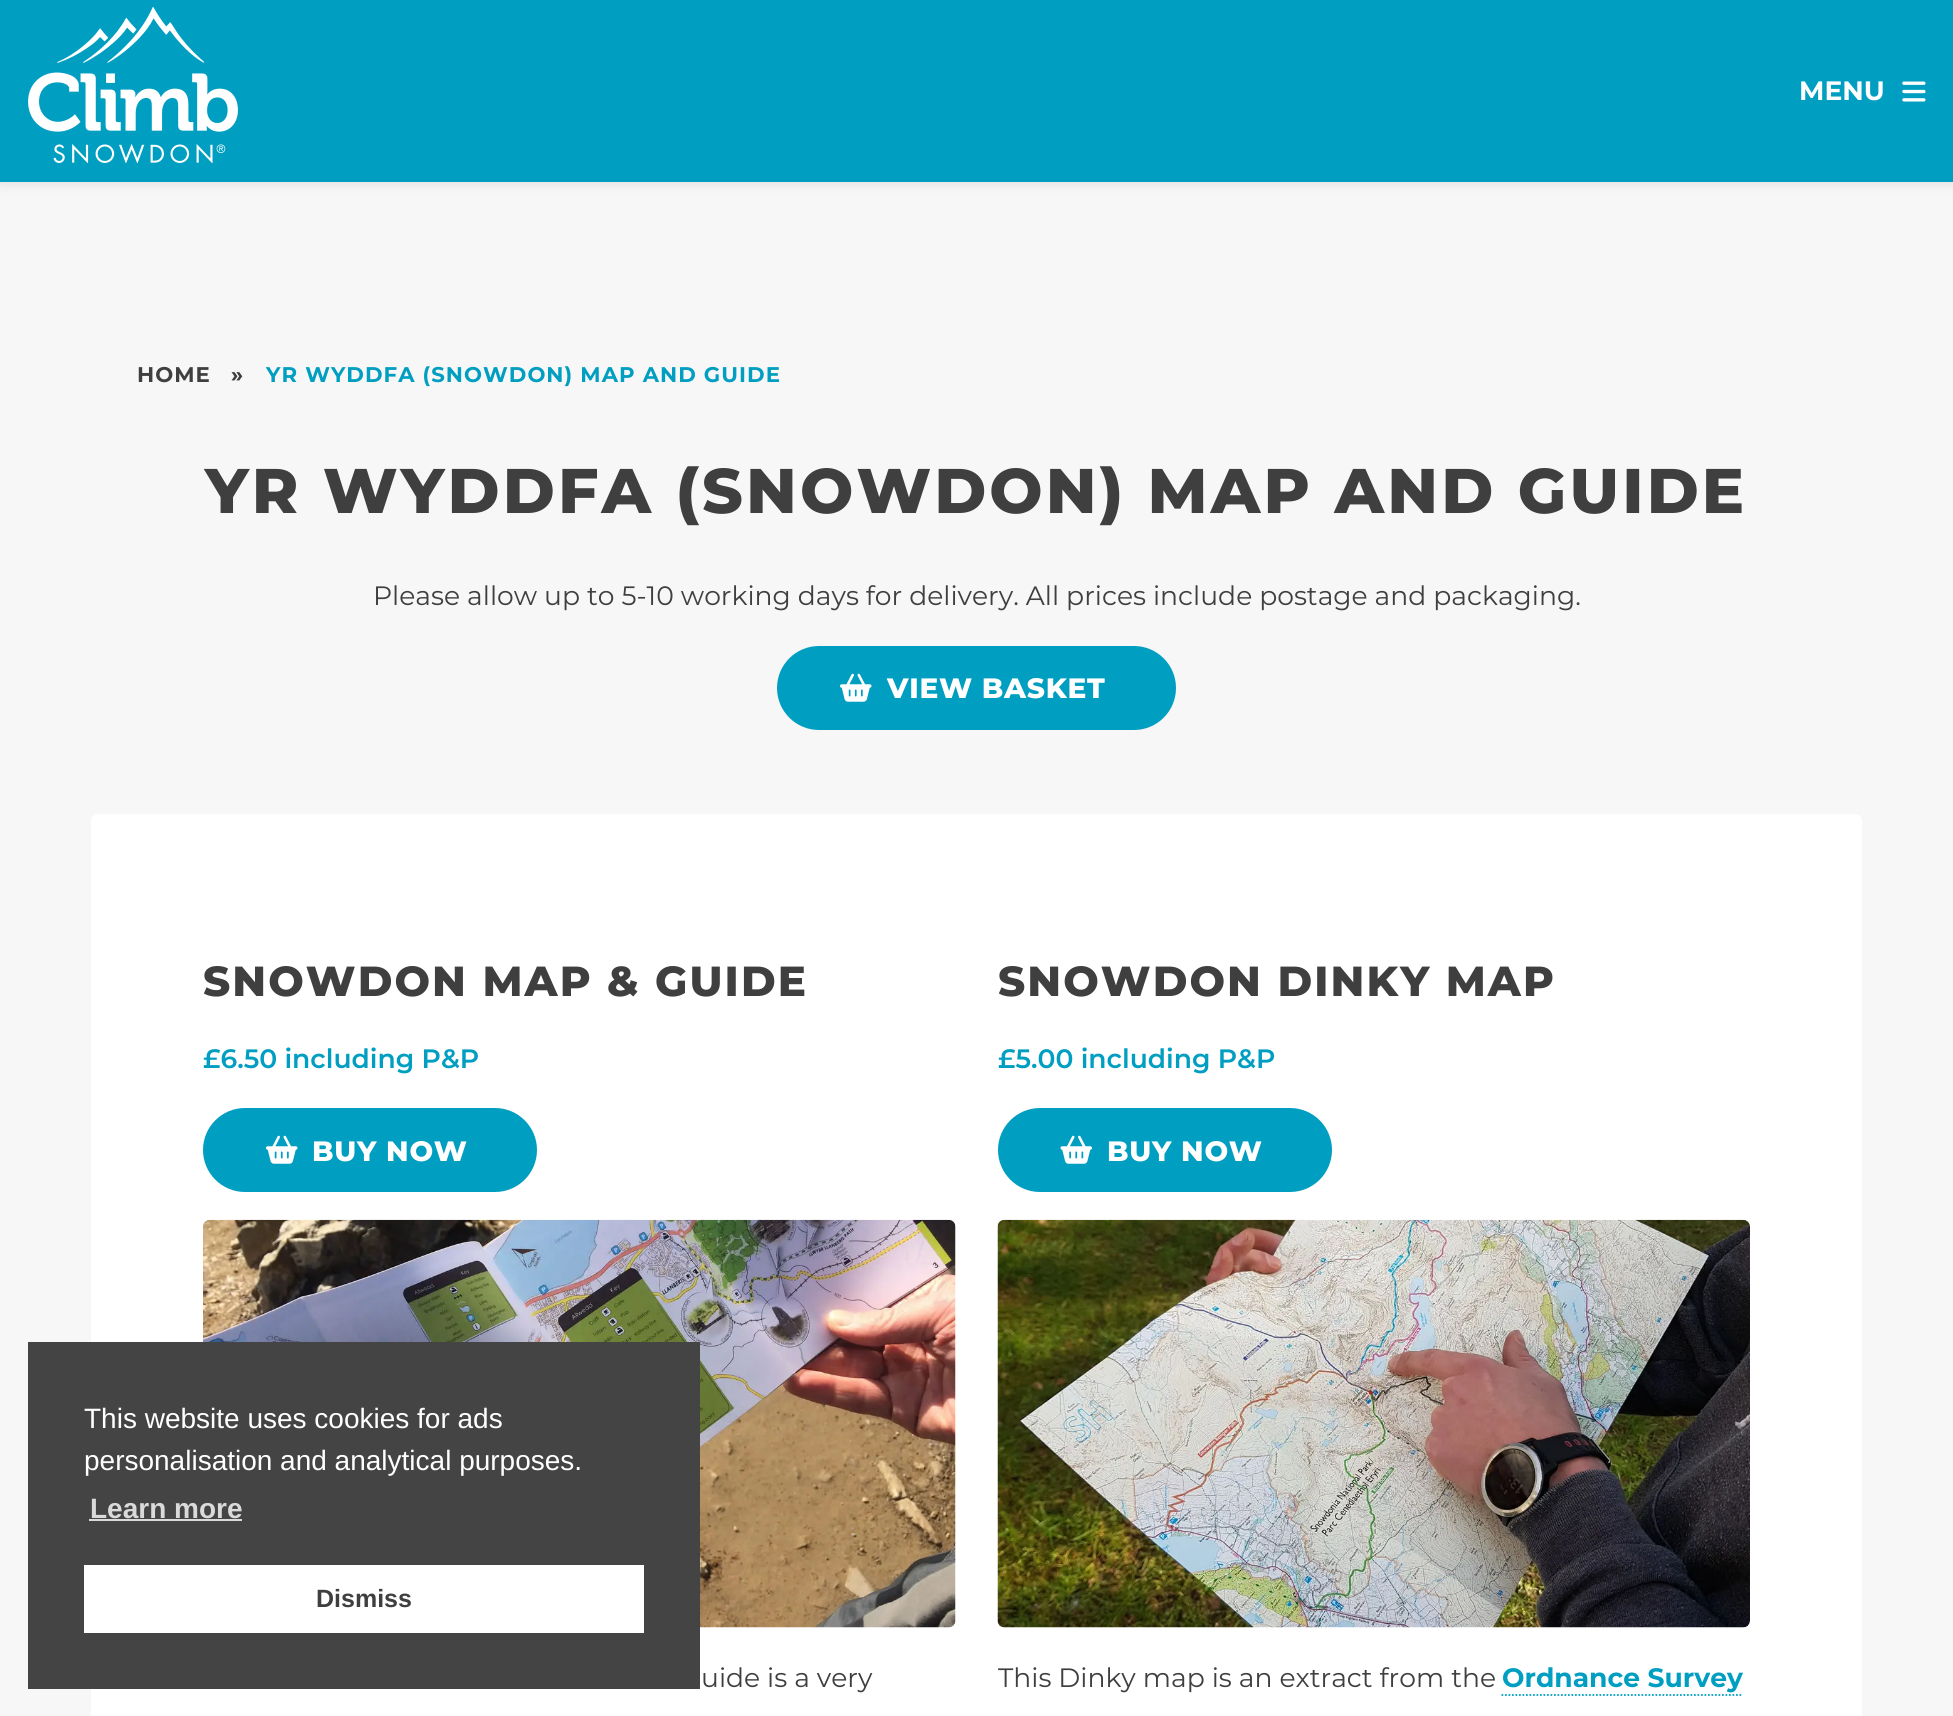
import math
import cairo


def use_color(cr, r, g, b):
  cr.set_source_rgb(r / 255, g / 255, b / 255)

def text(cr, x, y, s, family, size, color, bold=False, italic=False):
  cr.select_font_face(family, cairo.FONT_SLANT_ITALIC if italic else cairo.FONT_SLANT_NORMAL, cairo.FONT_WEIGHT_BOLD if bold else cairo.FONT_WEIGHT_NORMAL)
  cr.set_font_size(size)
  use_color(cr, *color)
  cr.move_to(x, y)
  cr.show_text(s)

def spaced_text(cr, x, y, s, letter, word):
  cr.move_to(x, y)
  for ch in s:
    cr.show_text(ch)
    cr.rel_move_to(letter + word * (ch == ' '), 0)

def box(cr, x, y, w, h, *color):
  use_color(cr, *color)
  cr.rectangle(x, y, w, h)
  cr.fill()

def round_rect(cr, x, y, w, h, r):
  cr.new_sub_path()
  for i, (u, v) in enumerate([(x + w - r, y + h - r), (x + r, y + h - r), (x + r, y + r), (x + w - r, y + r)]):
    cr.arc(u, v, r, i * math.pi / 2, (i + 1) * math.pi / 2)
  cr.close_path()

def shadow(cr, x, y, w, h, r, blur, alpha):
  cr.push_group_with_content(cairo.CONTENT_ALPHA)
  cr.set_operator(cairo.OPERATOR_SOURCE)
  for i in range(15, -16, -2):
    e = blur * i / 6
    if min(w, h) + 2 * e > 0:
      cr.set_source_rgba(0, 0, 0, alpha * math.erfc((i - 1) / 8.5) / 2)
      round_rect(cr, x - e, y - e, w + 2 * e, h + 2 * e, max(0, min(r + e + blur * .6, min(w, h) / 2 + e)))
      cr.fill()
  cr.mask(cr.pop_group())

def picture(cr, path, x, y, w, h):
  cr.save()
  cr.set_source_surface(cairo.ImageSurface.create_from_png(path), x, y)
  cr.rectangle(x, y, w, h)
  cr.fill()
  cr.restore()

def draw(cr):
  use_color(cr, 247, 247, 247)
  cr.paint()
  use_color(cr, 0, 0, 0)
  shadow(cr, 0, 0, 1953, 182, 0, 7, 0.12)
  box(cr, 0, 0, 1953, 182, 0, 158, 193)
  picture(cr, "img_01.png", 28, 7, 210, 156)
  picture(cr, "img_02.png", 1902, 81, 24, 21)
  round_rect(cr, 777, 646, 399, 84, 42)
  cr.fill()
  picture(cr, "img_03.png", 840, 673, 32, 29)
  use_color(cr, 255, 255, 255)
  round_rect(cr, 91, 814, 1771, 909, 7)
  cr.fill()
  use_color(cr, 0, 158, 193)
  round_rect(cr, 203, 1108, 334, 84, 42)
  cr.fill()
  picture(cr, "img_03.png", 266, 1135, 32, 29)
  picture(cr, "img_04.png", 203, 1219, 753, 409)
  round_rect(cr, 998, 1108, 334, 84, 42)
  cr.fill()
  picture(cr, "img_05.png", 1060, 1135, 32, 29)
  picture(cr, "img_06.png", 997, 1219, 753, 409)
  cr.new_path()
  cr.move_to(1501.5, 1695)
  cr.line_to(1743, 1695)
  cr.set_line_width(1.8)
  cr.set_dash([1.75, 1.75])
  cr.stroke()
  box(cr, 28, 1342, 672, 347, 68, 68, 68)
  box(cr, 89, 1519, 153, 2, 218, 218, 218)
  box(cr, 84, 1565, 560, 68, 255, 255, 255)
  text(cr, 1799, 100, "MENU", "Montserrat", 26.6, (255, 255, 255), bold=True)
  cr.set_font_size(21.25)
  use_color(cr, 63, 63, 63)
  spaced_text(cr, 137, 382, "HOME", 1.05, 0)
  spaced_text(cr, 231, 382, "»", 1.05, 0)
  use_color(cr, 0, 158, 193)
  spaced_text(cr, 266, 382, "YR WYDDFA (SNOWDON) MAP AND GUIDE", 1.05, 0)
  cr.select_font_face("Montserrat ExtraBold")
  cr.set_font_size(63)
  use_color(cr, 63, 63, 63)
  spaced_text(cr, 205, 513, "YR WYDDFA (SNOWDON) MAP AND GUIDE", 3.15, 0)
  text(cr, 373, 605, "Please allow up to 5-10 working days for delivery. All prices include postage and packaging.", "Montserrat", 26.6, (63, 63, 63))
  cr.select_font_face("Montserrat ExtraBold")
  cr.set_font_size(28)
  use_color(cr, 255, 255, 255)
  spaced_text(cr, 887, 698, "VIEW BASKET", 0.75, 0)
  cr.set_font_size(42)
  use_color(cr, 63, 63, 63)
  spaced_text(cr, 203, 996, "SNOWDON MAP & GUIDE", 2.1, 0)
  text(cr, 203, 1068, "£6.50 including P&P", "Montserrat SemiBold", 26.6, (0, 158, 193))
  cr.select_font_face("Montserrat ExtraBold")
  cr.set_font_size(28)
  use_color(cr, 255, 255, 255)
  spaced_text(cr, 312, 1161, "BUY NOW", 0.75, 0)
  text(cr, 701, 1687, "uide is a very", "Montserrat", 26.6, (63, 63, 63))
  cr.select_font_face("Montserrat ExtraBold")
  cr.set_font_size(42)
  spaced_text(cr, 998, 996, "SNOWDON DINKY MAP", 2.1, 0)
  text(cr, 998, 1068, "£5.00 including P&P", "Montserrat SemiBold", 26.6, (0, 158, 193))
  cr.select_font_face("Montserrat ExtraBold")
  cr.set_font_size(28)
  use_color(cr, 255, 255, 255)
  spaced_text(cr, 1107, 1161, "BUY NOW", 0.75, 0)
  text(cr, 998, 1687, "This Dinky map is an extract from the", "Montserrat", 26.6, (63, 63, 63))
  text(cr, 1502, 1687, "Ordnance Survey", "Montserrat", 26.6, (0, 158, 193), bold=True)
  text(cr, 84, 1428, "This website uses cookies for ads", "Liberation Sans", 28, (255, 255, 255))
  text(cr, 84, 1470, "personalisation and analytical purposes.", "Liberation Sans", 28, (255, 255, 255))
  text(cr, 90, 1518, "Learn more", "Liberation Sans", 28, (218, 218, 218), bold=True)
  text(cr, 316, 1607, "Dismiss", "Liberation Sans", 25, (63, 63, 63), bold=True)


surface = cairo.ImageSurface(cairo.FORMAT_RGB24, 1953, 1716)
cr = cairo.Context(surface)
options = cairo.FontOptions()
options.set_hint_metrics(cairo.HINT_METRICS_OFF)
options.set_hint_style(cairo.HINT_STYLE_NONE)
cr.set_font_options(options)
cr.set_miter_limit(4)
draw(cr)
surface.write_to_png("out.png")
